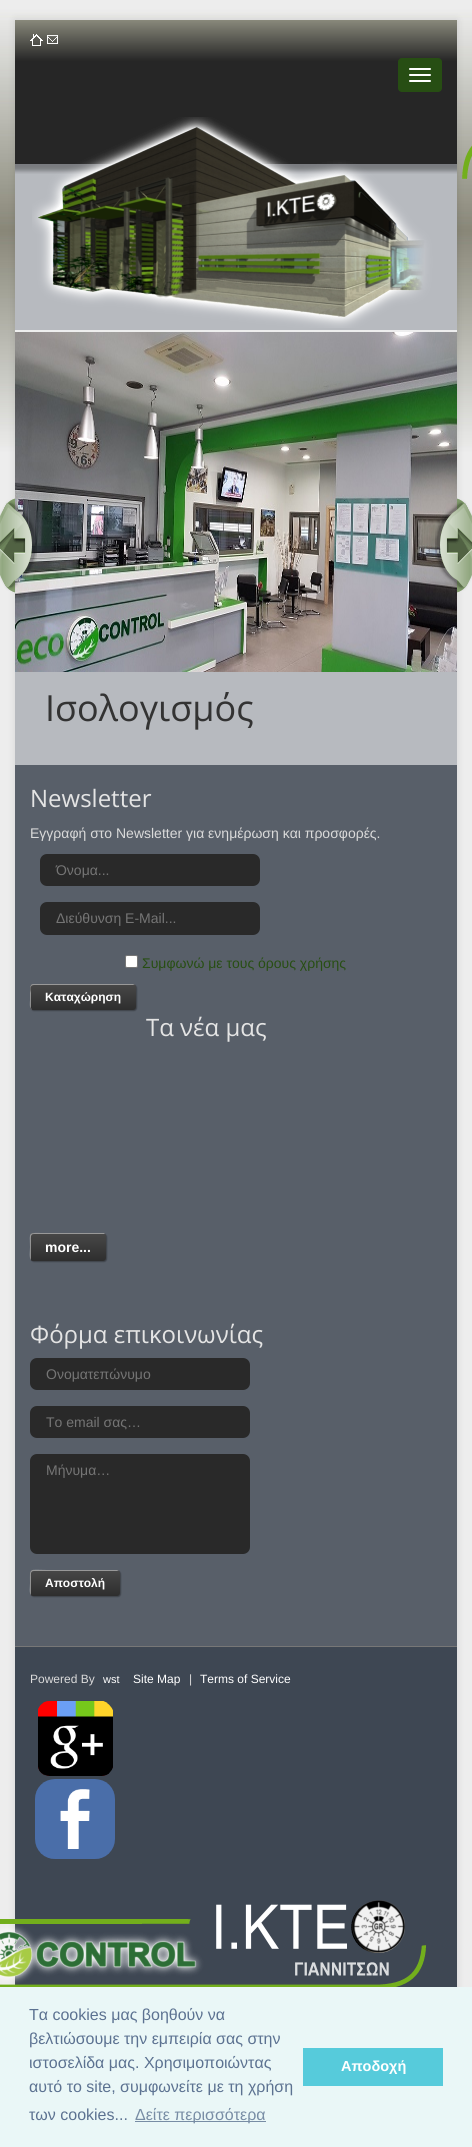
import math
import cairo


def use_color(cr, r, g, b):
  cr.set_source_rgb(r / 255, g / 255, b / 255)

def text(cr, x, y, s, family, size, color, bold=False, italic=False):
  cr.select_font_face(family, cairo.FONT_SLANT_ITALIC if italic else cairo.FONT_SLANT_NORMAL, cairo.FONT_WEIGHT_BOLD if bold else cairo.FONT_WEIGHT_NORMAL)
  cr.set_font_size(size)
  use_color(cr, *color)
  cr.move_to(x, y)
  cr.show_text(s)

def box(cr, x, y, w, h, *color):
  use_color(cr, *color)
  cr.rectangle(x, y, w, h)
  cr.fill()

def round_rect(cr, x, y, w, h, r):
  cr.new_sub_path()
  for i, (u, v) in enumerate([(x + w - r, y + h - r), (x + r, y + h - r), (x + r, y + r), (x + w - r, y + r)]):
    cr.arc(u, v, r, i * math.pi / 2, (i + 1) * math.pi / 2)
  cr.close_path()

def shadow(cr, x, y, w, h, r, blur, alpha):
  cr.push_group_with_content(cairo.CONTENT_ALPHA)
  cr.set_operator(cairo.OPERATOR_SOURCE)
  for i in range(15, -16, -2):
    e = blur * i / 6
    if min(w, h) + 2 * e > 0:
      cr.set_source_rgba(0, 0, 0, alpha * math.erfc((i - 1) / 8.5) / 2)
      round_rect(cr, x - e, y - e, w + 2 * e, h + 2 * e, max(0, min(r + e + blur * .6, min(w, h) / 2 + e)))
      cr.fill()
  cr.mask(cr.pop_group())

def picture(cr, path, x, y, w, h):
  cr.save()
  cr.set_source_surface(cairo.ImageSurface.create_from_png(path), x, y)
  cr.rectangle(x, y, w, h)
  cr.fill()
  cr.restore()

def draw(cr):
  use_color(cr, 255, 255, 255)
  cr.paint()
  picture(cr, "img_01.png", 0, 0, 472, 1987)
  use_color(cr, 0, 0, 0)
  shadow(cr, 15, 20, 442, 2106, 0, 4, 0.11)
  box(cr, 15, 164, 442, 601, 183, 186, 191)
  picture(cr, "img_02.png", 15, 20, 442, 154)
  picture(cr, "img_03.png", 30, 34, 13, 12)
  picture(cr, "img_04.png", 47, 35, 11, 9)
  box(cr, 15, 330, 442, 2, 238, 238, 238)
  use_color(cr, 39, 78, 19)
  round_rect(cr, 398.5, 58.5, 43, 33, 3.5)
  cr.fill_preserve()
  cr.set_line_width(1)
  cr.stroke()
  use_color(cr, 255, 255, 255)
  round_rect(cr, 409, 68, 22, 2, 1)
  cr.fill()
  round_rect(cr, 409, 74, 22, 2, 1)
  cr.fill()
  round_rect(cr, 409, 80, 22, 2, 1)
  cr.fill()
  picture(cr, "img_05.png", 32, 117, 440, 211)
  picture(cr, "img_06.png", 15, 332, 442, 340)
  picture(cr, "img_07.png", 0, 498, 37, 95)
  picture(cr, "img_08.png", 435, 498, 37, 95)
  box(cr, 15, 765, 442, 881, 88, 95, 105)
  use_color(cr, 41, 41, 41)
  round_rect(cr, 40, 854, 220, 32, 7)
  cr.fill()
  round_rect(cr, 40, 902, 220, 33, 7)
  cr.fill()
  use_color(cr, 255, 255, 255)
  round_rect(cr, 125.5, 955.5, 12, 12, 1.5)
  cr.fill_preserve()
  use_color(cr, 118, 118, 118)
  cr.stroke()
  use_color(cr, 0, 0, 0)
  shadow(cr, 31, 985, 106, 26, 3, 0.5, 0.29)
  use_color(cr, 51, 51, 51)
  round_rect(cr, 30, 984, 106, 26, 3)
  cr.fill()
  gradient = cairo.LinearGradient(83, 984, 83, 1010)
  gradient.add_color_stop_rgba(0, 1, 1, 1, 0.1)
  gradient.add_color_stop_rgba(1, 0, 0, 0, 0.1)
  cr.set_source(gradient)
  round_rect(cr, 30, 984, 106, 26, 3)
  cr.fill()
  cr.set_source_rgba(1, 1, 1, 0.44)
  cr.new_path()
  cr.move_to(34, 985)
  cr.line_to(135, 985)
  cr.line_to(133, 984)
  cr.line_to(33, 984)
  cr.curve_to(30, 984, 30, 988, 30, 990)
  cr.line_to(30, 1000)
  cr.curve_to(30, 1003, 29, 1008, 32, 1010)
  cr.line_to(31, 1008)
  cr.line_to(31, 993)
  cr.curve_to(30, 989, 30, 985, 34, 985)
  cr.close_path()
  cr.fill()
  use_color(cr, 0, 0, 0)
  shadow(cr, 31, 1234, 76, 28, 3, 0.5, 0.29)
  use_color(cr, 51, 51, 51)
  round_rect(cr, 30, 1233, 76, 28, 3)
  cr.fill()
  gradient = cairo.LinearGradient(68, 1233, 68, 1261)
  gradient.add_color_stop_rgba(0, 1, 1, 1, 0.1)
  gradient.add_color_stop_rgba(1, 0, 0, 0, 0.1)
  cr.set_source(gradient)
  round_rect(cr, 30, 1233, 76, 28, 3)
  cr.fill()
  cr.set_source_rgba(1, 1, 1, 0.44)
  cr.new_path()
  cr.move_to(34, 1234)
  cr.line_to(105, 1234)
  cr.line_to(104, 1233)
  cr.line_to(45, 1233)
  cr.curve_to(27, 1233, 30, 1231, 30, 1247)
  cr.curve_to(30, 1250, 29, 1259, 31, 1260)
  cr.line_to(31, 1241)
  cr.curve_to(31, 1238, 30, 1234, 34, 1234)
  cr.close_path()
  cr.fill()
  use_color(cr, 41, 41, 41)
  round_rect(cr, 30, 1358, 220, 32, 7)
  cr.fill()
  round_rect(cr, 30, 1406, 220, 32, 7)
  cr.fill()
  round_rect(cr, 30, 1454, 220, 100, 7)
  cr.fill()
  use_color(cr, 0, 0, 0)
  shadow(cr, 31, 1571, 90, 26, 3, 0.5, 0.29)
  use_color(cr, 51, 51, 51)
  round_rect(cr, 30, 1570, 90, 26, 3)
  cr.fill()
  gradient = cairo.LinearGradient(75, 1570, 75, 1596)
  gradient.add_color_stop_rgba(0, 1, 1, 1, 0.1)
  gradient.add_color_stop_rgba(1, 0, 0, 0, 0.1)
  cr.set_source(gradient)
  round_rect(cr, 30, 1570, 90, 26, 3)
  cr.fill()
  cr.set_source_rgba(1, 1, 1, 0.44)
  cr.new_path()
  cr.move_to(34, 1571)
  cr.line_to(119, 1571)
  cr.line_to(117, 1570)
  cr.line_to(47, 1570)
  cr.curve_to(28, 1570, 30, 1567, 30, 1583)
  cr.curve_to(30, 1586, 29, 1594, 31, 1595)
  cr.line_to(31, 1577)
  cr.curve_to(31, 1575, 30, 1571, 34, 1571)
  cr.close_path()
  cr.fill()
  box(cr, 15, 1647, 442, 340, 62, 71, 83)
  box(cr, 15, 1646, 442, 1, 119, 119, 119)
  picture(cr, "img_09.png", 38, 1701, 75, 75)
  picture(cr, "img_10.png", 35, 1779, 80, 80)
  picture(cr, "img_11.png", 0, 1900, 426, 87)
  box(cr, 0, 1987, 472, 160, 234, 247, 247)
  box(cr, 135, 2121, 131, 1, 120, 141, 165)
  box(cr, 303, 2048, 140, 38, 86, 203, 219)
  text(cr, 45, 721, "Ισολογισμός", "Open Sans", 36, (51, 51, 51))
  text(cr, 30, 807, "Newsletter", "Open Sans", 24, (228, 228, 228))
  text(cr, 30, 838, "Εγγραφή στο Νewsletter για ενημέρωση και προσφορές.", "Liberation Sans", 14, (218, 218, 218))
  text(cr, 56, 875, "Όνομα...", "Liberation Sans", 14, (117, 117, 117))
  text(cr, 56, 923, "Διεύθυνση E-Mail...", "Liberation Sans", 14, (117, 117, 117))
  text(cr, 142, 968, "Συμφωνώ με τους όρους χρήσης", "Liberation Sans", 14, (39, 78, 19))
  text(cr, 45, 1001, "Καταχώρηση", "Liberation Sans", 12, (255, 255, 255), bold=True)
  text(cr, 146, 1036, "Τα νέα μας", "Open Sans", 24, (228, 228, 228))
  text(cr, 45, 1252, "more...", "Liberation Sans", 14, (255, 255, 255), bold=True)
  text(cr, 30, 1343, "Φόρμα επικοινωνίας", "Open Sans", 24, (228, 228, 228))
  text(cr, 46, 1379, "Ονοματεπώνυμο", "Liberation Sans", 14, (117, 117, 117))
  text(cr, 46, 1427, "Το email σας…", "Liberation Sans", 14, (117, 117, 117))
  text(cr, 46, 1475, "Μήνυμα…", "Liberation Sans", 14, (117, 117, 117))
  text(cr, 45, 1587, "Αποστολή", "Liberation Sans", 12, (255, 255, 255), bold=True)
  text(cr, 30, 1683, "Powered By", "Liberation Sans", 12, (218, 218, 218))
  text(cr, 103, 1683, "wst", "Liberation Sans", 11, (255, 255, 255))
  text(cr, 133, 1683, "Site Map", "Liberation Sans", 12, (255, 255, 255))
  text(cr, 189, 1683, "|", "Liberation Sans", 12, (218, 218, 218))
  text(cr, 200, 1683, "Terms of Service", "Liberation Sans", 12, (255, 255, 255))
  text(cr, 29, 2020, "Τα cookies μας βοηθούν να", "Liberation Sans", 16, (92, 114, 145))
  text(cr, 29, 2044, "βελτιώσουμε την εμπειρία σας στην", "Liberation Sans", 16, (92, 114, 145))
  text(cr, 29, 2068, "ιστοσελίδα μας. Χρησιμοποιώντας", "Liberation Sans", 16, (92, 114, 145))
  text(cr, 29, 2092, "αυτό το site, συμφωνείτε με τη χρήση", "Liberation Sans", 16, (92, 114, 145))
  text(cr, 29, 2120, "των cookies...", "Liberation Sans", 16, (92, 114, 145))
  text(cr, 135, 2120, "Δείτε περισσότερα", "Liberation Sans", 16, (120, 141, 165))
  text(cr, 341, 2071, "Αποδοχή", "Liberation Sans", 14.5, (255, 255, 255), bold=True)


surface = cairo.ImageSurface(cairo.FORMAT_RGB24, 472, 2147)
cr = cairo.Context(surface)
options = cairo.FontOptions()
options.set_hint_metrics(cairo.HINT_METRICS_OFF)
options.set_hint_style(cairo.HINT_STYLE_NONE)
cr.set_font_options(options)
cr.set_miter_limit(4)
draw(cr)
surface.write_to_png("out.png")
